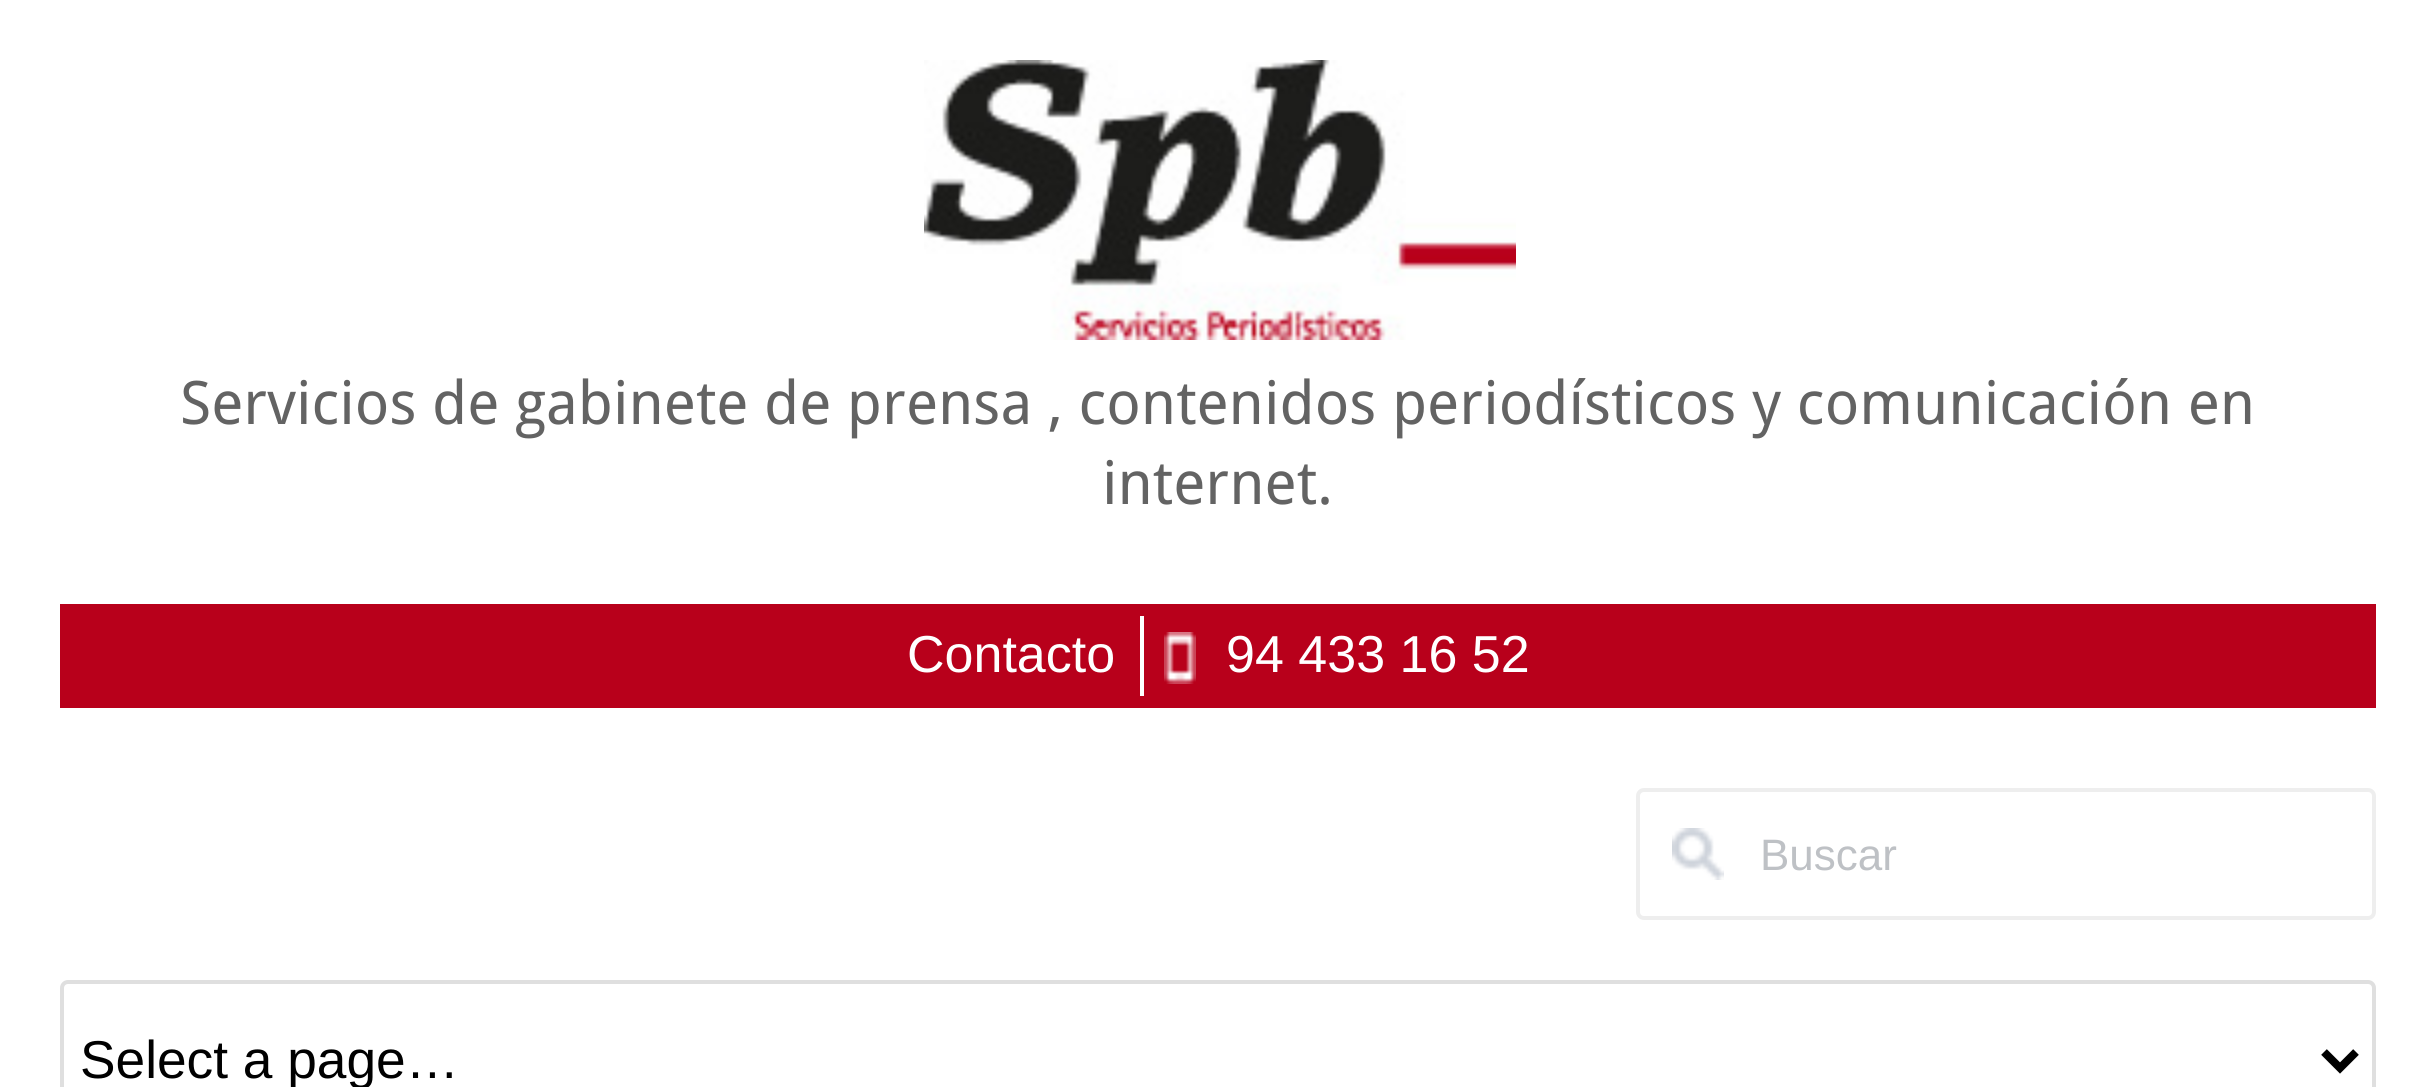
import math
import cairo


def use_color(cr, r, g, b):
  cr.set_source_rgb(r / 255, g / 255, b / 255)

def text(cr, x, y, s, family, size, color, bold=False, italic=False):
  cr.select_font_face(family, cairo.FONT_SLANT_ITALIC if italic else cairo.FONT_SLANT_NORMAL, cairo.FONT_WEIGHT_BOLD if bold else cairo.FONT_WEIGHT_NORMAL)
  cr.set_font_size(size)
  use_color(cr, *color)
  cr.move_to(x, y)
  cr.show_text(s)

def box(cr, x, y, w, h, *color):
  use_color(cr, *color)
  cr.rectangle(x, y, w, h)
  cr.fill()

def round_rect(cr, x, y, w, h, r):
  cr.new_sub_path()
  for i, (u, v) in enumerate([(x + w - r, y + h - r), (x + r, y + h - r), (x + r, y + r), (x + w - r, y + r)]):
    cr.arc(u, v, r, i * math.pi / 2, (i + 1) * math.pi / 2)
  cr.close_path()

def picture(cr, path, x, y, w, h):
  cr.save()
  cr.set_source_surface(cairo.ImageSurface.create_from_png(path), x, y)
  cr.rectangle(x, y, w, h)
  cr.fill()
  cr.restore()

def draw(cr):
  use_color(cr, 255, 255, 255)
  cr.paint()
  picture(cr, "img_01.png", 924, 60, 592, 280)
  box(cr, 60, 604, 2316, 104, 184, 0, 27)
  picture(cr, "img_02.png", 1164, 632, 32, 52)
  box(cr, 1140, 616, 4, 80, 255, 255, 255)
  picture(cr, "img_03.png", 1672, 828, 52, 52)
  round_rect(cr, 1638, 790, 736, 128, 6)
  use_color(cr, 238, 238, 238)
  cr.set_line_width(4)
  cr.stroke()
  round_rect(cr, 62, 982, 2312, 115, 6)
  use_color(cr, 223, 223, 223)
  cr.stroke()
  cr.new_path()
  cr.move_to(2324, 1052)
  cr.line_to(2340, 1068)
  cr.line_to(2356, 1052)
  use_color(cr, 0, 0, 0)
  cr.set_line_width(8)
  cr.stroke()
  text(cr, 180, 424, "Servicios de gabinete de prensa , contenidos periodísticos y comunicación en", "Droid Sans", 60, (99, 99, 99))
  text(cr, 1102, 504, "internet.", "Droid Sans", 60, (99, 99, 99))
  text(cr, 907, 672, "Contacto", "Liberation Sans", 52, (255, 255, 255))
  text(cr, 1226, 672, "94 433 16 52", "Liberation Sans", 52, (255, 255, 255))
  text(cr, 1760, 870, "Buscar", "Liberation Sans", 44, (190, 193, 197))
  text(cr, 80, 1078, "Select a page…", "Liberation Sans", 53.25, (0, 0, 0))


surface = cairo.ImageSurface(cairo.FORMAT_RGB24, 2433, 1087)
cr = cairo.Context(surface)
options = cairo.FontOptions()
options.set_hint_metrics(cairo.HINT_METRICS_OFF)
options.set_hint_style(cairo.HINT_STYLE_NONE)
cr.set_font_options(options)
cr.set_miter_limit(4)
draw(cr)
surface.write_to_png("out.png")
